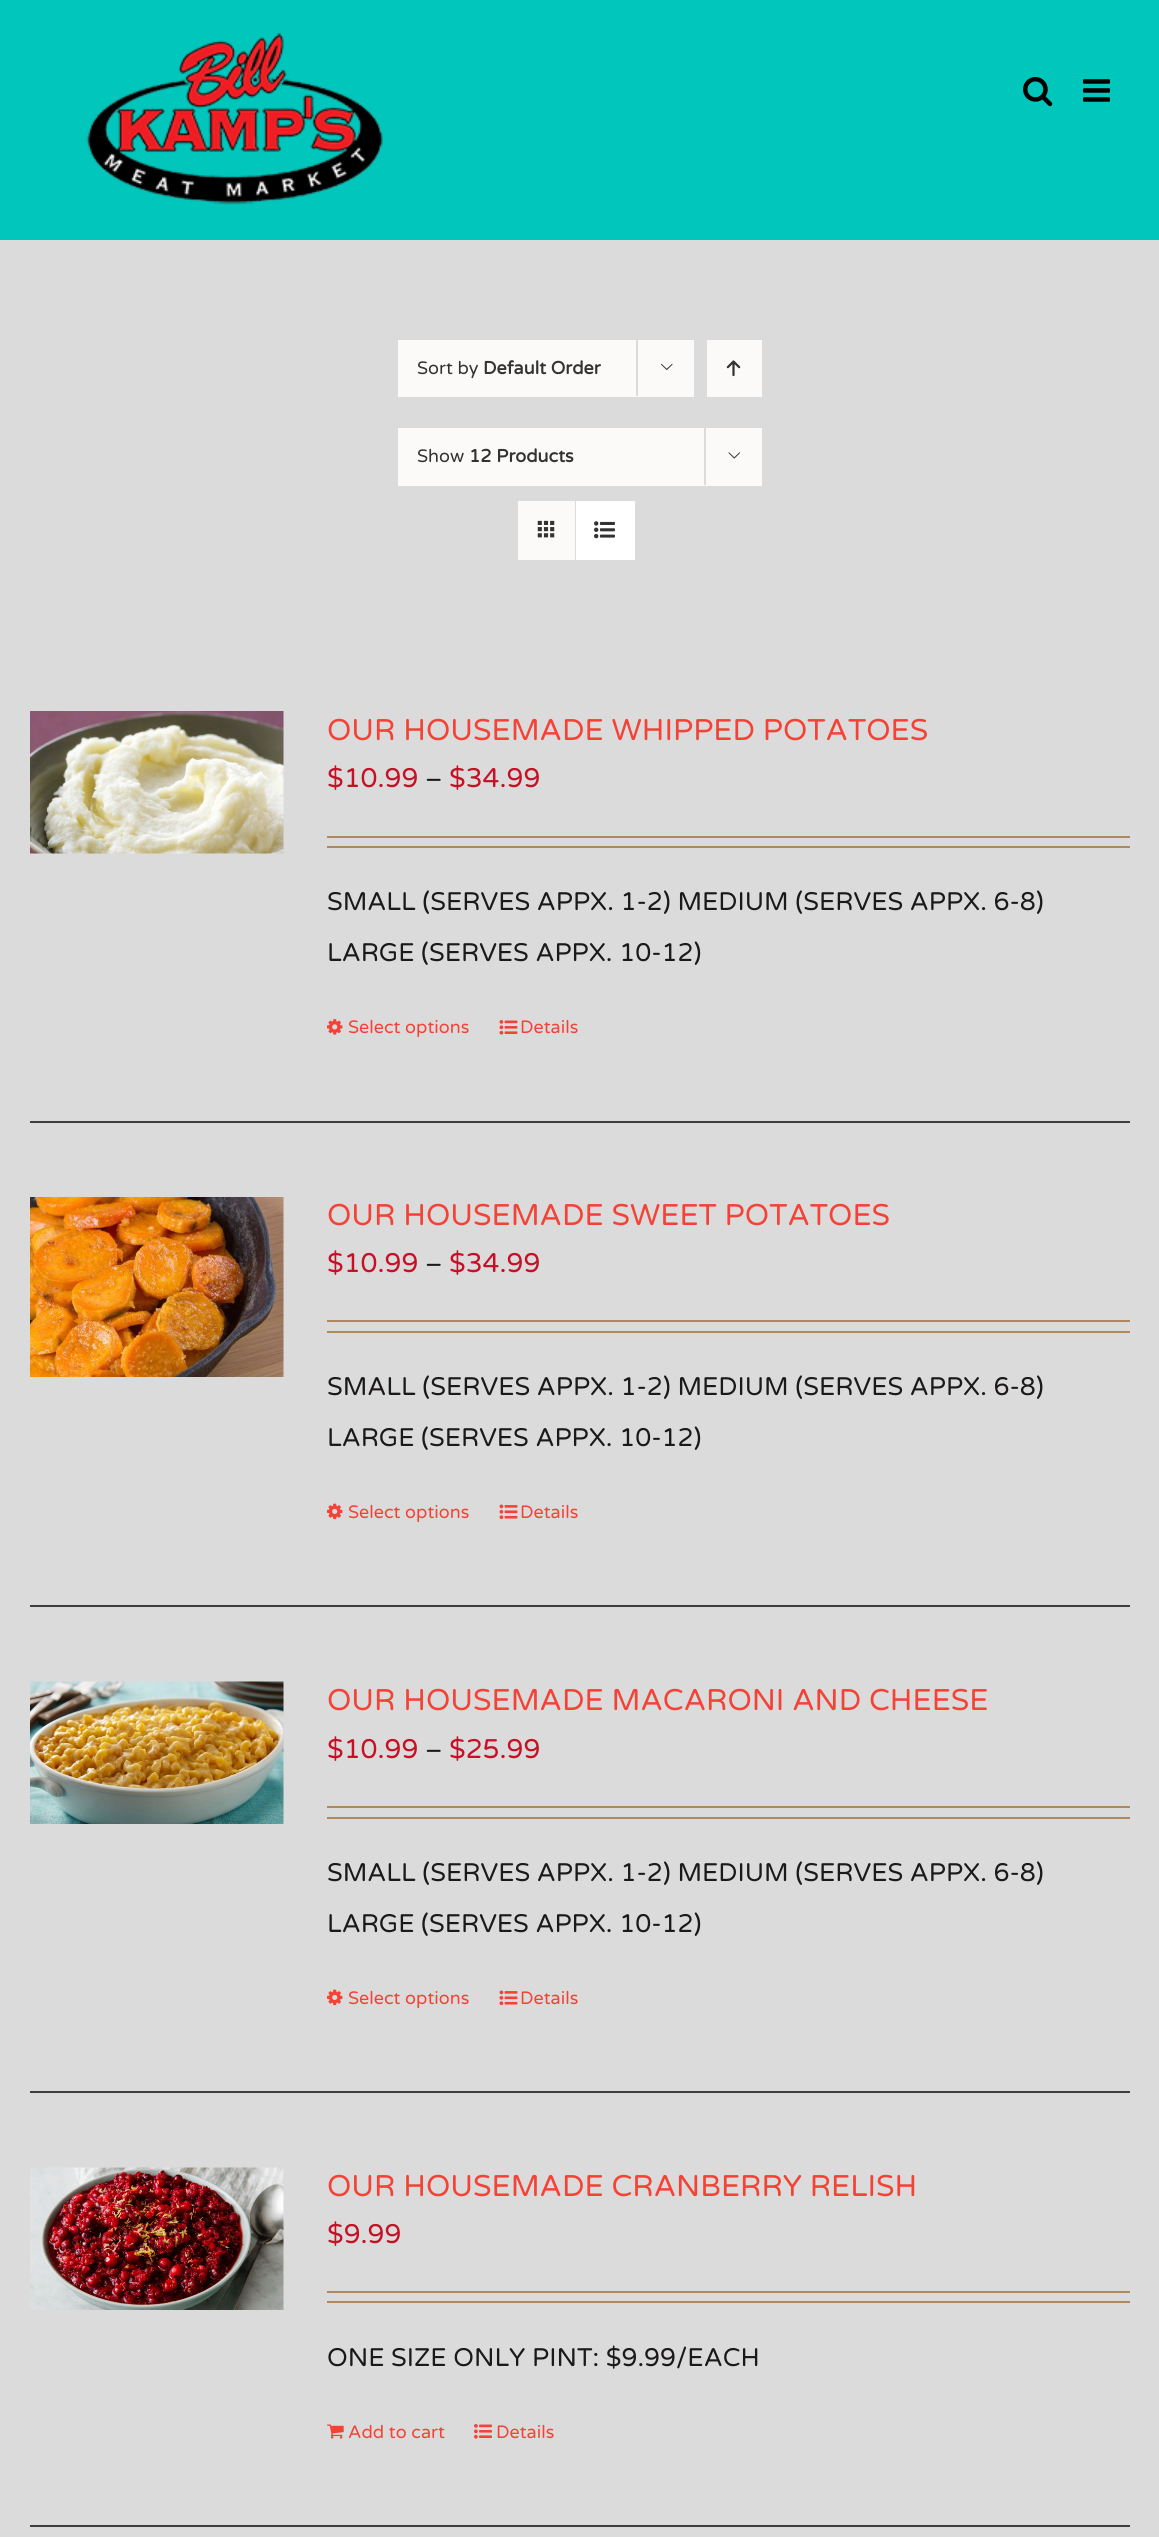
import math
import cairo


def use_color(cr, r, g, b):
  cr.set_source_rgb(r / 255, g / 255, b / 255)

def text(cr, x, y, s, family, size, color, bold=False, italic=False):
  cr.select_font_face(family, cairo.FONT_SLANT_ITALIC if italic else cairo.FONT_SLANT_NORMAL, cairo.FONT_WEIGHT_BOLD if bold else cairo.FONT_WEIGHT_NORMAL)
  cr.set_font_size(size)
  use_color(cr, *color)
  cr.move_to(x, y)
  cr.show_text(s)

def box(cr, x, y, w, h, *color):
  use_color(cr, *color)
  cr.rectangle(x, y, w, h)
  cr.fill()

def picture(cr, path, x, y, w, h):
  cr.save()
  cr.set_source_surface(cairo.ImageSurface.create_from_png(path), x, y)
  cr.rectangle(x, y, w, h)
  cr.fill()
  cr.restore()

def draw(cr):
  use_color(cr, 219, 219, 219)
  cr.paint()
  box(cr, 0, 0, 1159, 240, 0, 198, 188)
  picture(cr, "img_01.png", 86, 32, 297, 173)
  picture(cr, "img_02.png", 1023, 77, 30, 30)
  picture(cr, "img_03.png", 1083, 79, 27, 23)
  box(cr, 398, 340, 296, 57, 251, 250, 249)
  box(cr, 636, 338, 2, 58, 219, 219, 219)
  picture(cr, "img_04.png", 661, 363, 12, 7)
  box(cr, 707, 340, 55, 57, 251, 250, 249)
  picture(cr, "img_05.png", 726, 360, 15, 17)
  box(cr, 398, 428, 364, 58, 251, 250, 249)
  box(cr, 704, 426, 2, 59, 219, 219, 219)
  picture(cr, "img_06.png", 728, 452, 12, 7)
  box(cr, 518, 501, 57, 59, 251, 250, 249)
  picture(cr, "img_07.png", 537, 520, 18, 18)
  box(cr, 576, 501, 59, 59, 255, 255, 255)
  picture(cr, "img_08.png", 594, 521, 21, 18)
  box(cr, 30, 1121, 1100, 2, 62, 62, 62)
  picture(cr, "img_09.png", 30, 711, 254, 143)
  box(cr, 327, 836, 803, 2, 174, 137, 93)
  box(cr, 327, 846, 803, 2, 174, 137, 93)
  picture(cr, "img_10.png", 327, 1019, 16, 16)
  picture(cr, "img_11.png", 499, 1020, 19, 15)
  box(cr, 30, 1605, 1100, 2, 62, 62, 62)
  picture(cr, "img_12.png", 30, 1197, 254, 180)
  box(cr, 327, 1320, 803, 2, 174, 137, 93)
  box(cr, 327, 1331, 803, 2, 174, 137, 93)
  picture(cr, "img_13.png", 327, 1503, 16, 17)
  picture(cr, "img_14.png", 499, 1504, 19, 16)
  box(cr, 30, 2091, 1100, 2, 62, 62, 62)
  picture(cr, "img_15.png", 30, 1681, 254, 143)
  box(cr, 327, 1806, 803, 2, 174, 137, 93)
  box(cr, 327, 1817, 803, 2, 174, 137, 93)
  picture(cr, "img_13.png", 327, 1989, 16, 17)
  picture(cr, "img_14.png", 499, 1990, 19, 16)
  box(cr, 30, 2525, 1100, 2, 62, 62, 62)
  picture(cr, "img_16.png", 30, 2167, 254, 143)
  box(cr, 327, 2291, 803, 2, 174, 137, 93)
  box(cr, 327, 2301, 803, 2, 174, 137, 93)
  picture(cr, "img_17.png", 327, 2424, 17, 15)
  picture(cr, "img_18.png", 474, 2424, 18, 15)
  text(cr, 417, 374, "Sort by", "Varela Round", 18, (51, 51, 51))
  text(cr, 483, 374, "Default Order", "Varela Round", 18, (51, 51, 51), bold=True)
  text(cr, 417, 462, "Show", "Varela Round", 18, (51, 51, 51))
  text(cr, 469, 462, "12 Products", "Varela Round", 18, (51, 51, 51), bold=True)
  text(cr, 327, 740, "OUR HOUSEMADE WHIPPED POTATOES", "Varela Round", 30, (244, 67, 54))
  text(cr, 327, 787, "$10.99", "Varela Round", 27, (198, 16, 38))
  text(cr, 425, 787, "–", "Varela Round", 25.5, (28, 25, 25))
  text(cr, 449, 787, "$34.99", "Varela Round", 27, (198, 16, 38))
  text(cr, 327, 910, "SMALL (SERVES APPX. 1-2) MEDIUM (SERVES APPX. 6-8)", "Varela Round", 25.5, (28, 25, 25))
  text(cr, 327, 961, "LARGE (SERVES APPX. 10-12)", "Varela Round", 25.5, (28, 25, 25))
  text(cr, 348, 1033, "Select options", "Varela Round", 18, (244, 67, 54))
  text(cr, 520, 1033, "Details", "Varela Round", 18, (244, 67, 54))
  text(cr, 327, 1225, "OUR HOUSEMADE SWEET POTATOES", "Varela Round", 30, (244, 67, 54))
  text(cr, 327, 1272, "$10.99", "Varela Round", 27, (198, 16, 38))
  text(cr, 425, 1272, "–", "Varela Round", 25.5, (28, 25, 25))
  text(cr, 449, 1272, "$34.99", "Varela Round", 27, (198, 16, 38))
  text(cr, 327, 1395, "SMALL (SERVES APPX. 1-2) MEDIUM (SERVES APPX. 6-8)", "Varela Round", 25.5, (28, 25, 25))
  text(cr, 327, 1446, "LARGE (SERVES APPX. 10-12)", "Varela Round", 25.5, (28, 25, 25))
  text(cr, 348, 1518, "Select options", "Varela Round", 18, (244, 67, 54))
  text(cr, 520, 1518, "Details", "Varela Round", 18, (244, 67, 54))
  text(cr, 327, 1710, "OUR HOUSEMADE MACARONI AND CHEESE", "Varela Round", 30, (244, 67, 54))
  text(cr, 327, 1758, "$10.99", "Varela Round", 27, (198, 16, 38))
  text(cr, 425, 1758, "–", "Varela Round", 25.5, (28, 25, 25))
  text(cr, 449, 1758, "$25.99", "Varela Round", 27, (198, 16, 38))
  text(cr, 327, 1881, "SMALL (SERVES APPX. 1-2) MEDIUM (SERVES APPX. 6-8)", "Varela Round", 25.5, (28, 25, 25))
  text(cr, 327, 1932, "LARGE (SERVES APPX. 10-12)", "Varela Round", 25.5, (28, 25, 25))
  text(cr, 348, 2004, "Select options", "Varela Round", 18, (244, 67, 54))
  text(cr, 520, 2004, "Details", "Varela Round", 18, (244, 67, 54))
  text(cr, 327, 2196, "OUR HOUSEMADE CRANBERRY RELISH", "Varela Round", 30, (244, 67, 54))
  text(cr, 327, 2243, "$9.99", "Varela Round", 27, (198, 16, 38))
  text(cr, 327, 2366, "ONE SIZE ONLY PINT: $9.99/EACH", "Varela Round", 25.5, (28, 25, 25))
  text(cr, 348, 2438, "Add to cart", "Varela Round", 18, (244, 67, 54))
  text(cr, 496, 2438, "Details", "Varela Round", 18, (244, 67, 54))


surface = cairo.ImageSurface(cairo.FORMAT_RGB24, 1159, 2537)
cr = cairo.Context(surface)
options = cairo.FontOptions()
options.set_hint_metrics(cairo.HINT_METRICS_OFF)
options.set_hint_style(cairo.HINT_STYLE_NONE)
cr.set_font_options(options)
cr.set_miter_limit(4)
draw(cr)
surface.write_to_png("out.png")
